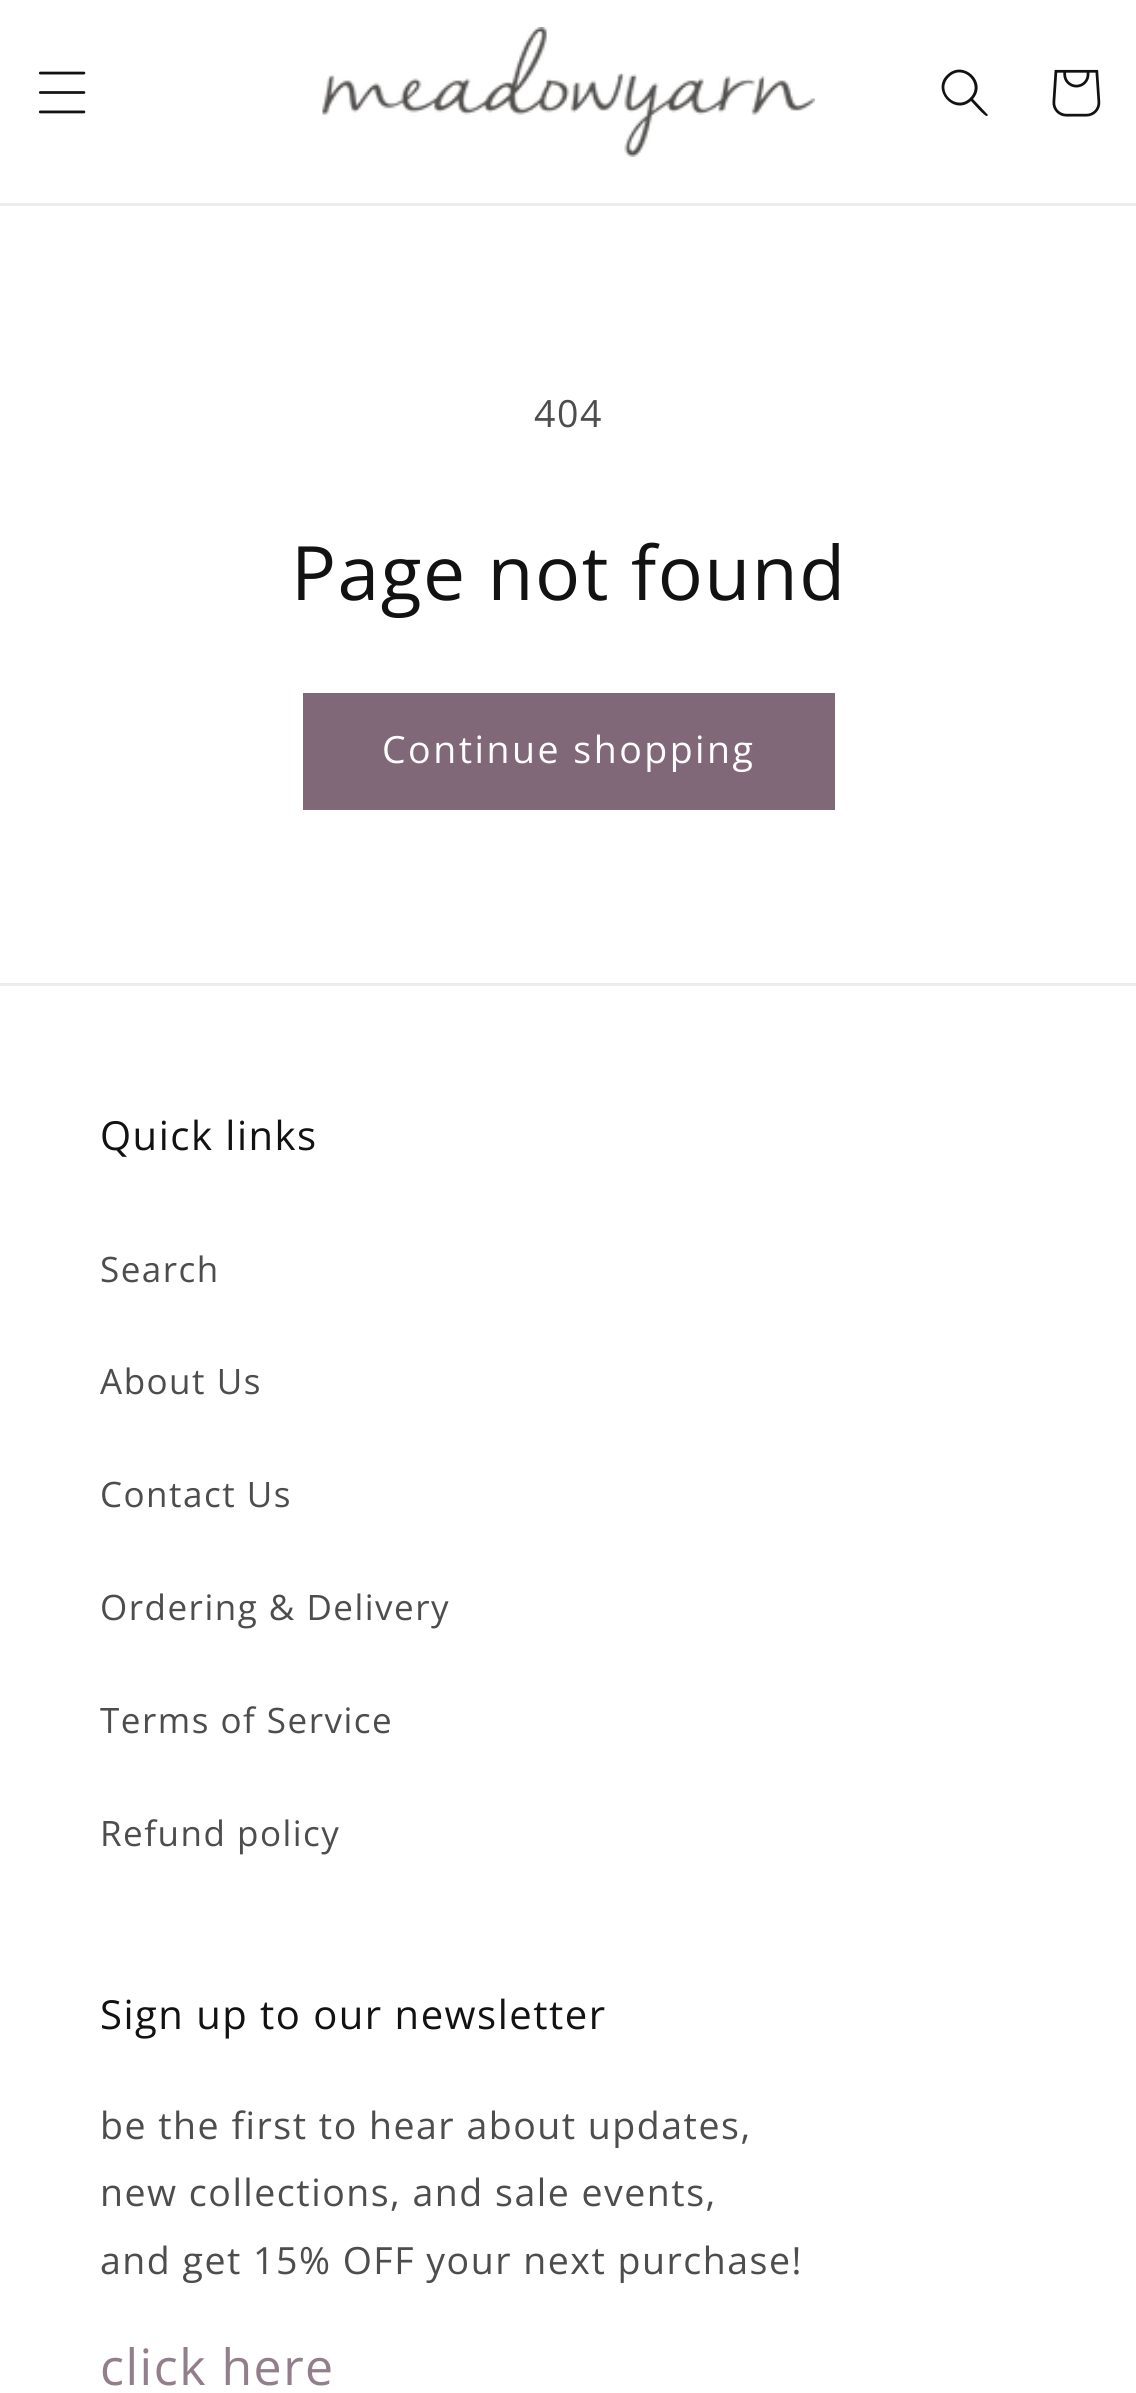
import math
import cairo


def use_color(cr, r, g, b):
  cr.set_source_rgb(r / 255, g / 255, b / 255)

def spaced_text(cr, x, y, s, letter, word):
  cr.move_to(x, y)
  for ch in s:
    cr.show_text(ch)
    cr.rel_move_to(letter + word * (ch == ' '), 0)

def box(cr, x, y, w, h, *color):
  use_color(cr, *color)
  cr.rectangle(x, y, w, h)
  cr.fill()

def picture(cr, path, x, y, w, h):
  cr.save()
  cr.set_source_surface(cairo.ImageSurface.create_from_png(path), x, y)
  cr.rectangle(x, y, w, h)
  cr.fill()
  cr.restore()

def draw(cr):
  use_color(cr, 255, 255, 255)
  cr.paint()
  box(cr, 0, 203, 1136, 3, 236, 236, 236)
  picture(cr, "img_01.png", 38, 71, 48, 43)
  picture(cr, "img_02.png", 322, 27, 493, 130)
  use_color(cr, 18, 18, 18)
  cr.set_fill_rule(cairo.FILL_RULE_EVEN_ODD)
  cr.new_path()
  cr.move_to(970, 98)
  cr.curve_to(956, 112, 935, 91, 949, 77)
  cr.curve_to(963, 63, 984, 84, 970, 98)
  cr.close_path()
  cr.move_to(971, 101)
  cr.curve_to(954, 116, 931, 90, 947, 75)
  cr.curve_to(963, 59, 988, 82, 973, 99)
  cr.line_to(988, 115)
  cr.line_to(987, 116)
  cr.curve_to(985, 117, 973, 103, 971, 101)
  cr.close_path()
  cr.fill()
  picture(cr, "img_03.png", 1052, 69, 49, 48)
  cr.rectangle(304.5, 694.5, 529, 114)
  use_color(cr, 128, 104, 120)
  cr.set_line_width(3)
  cr.stroke()
  box(cr, 306, 696, 526, 111, 128, 104, 120)
  box(cr, 0, 983, 1136, 3, 236, 236, 236)
  cr.select_font_face("Open Sans")
  cr.set_font_size(37.5)
  use_color(cr, 77, 77, 77)
  spaced_text(cr, 534, 427, "404", 1.5, 0)
  cr.set_font_size(75)
  use_color(cr, 18, 18, 18)
  spaced_text(cr, 291, 600, "Page not found", 1.5, 0)
  cr.set_font_size(37.5)
  use_color(cr, 255, 255, 255)
  spaced_text(cr, 382, 763, "Continue shopping", 2.5, 0)
  cr.set_font_size(40)
  use_color(cr, 18, 18, 18)
  spaced_text(cr, 100, 1150, "Quick links", 1.5, 0)
  cr.set_font_size(35)
  use_color(cr, 77, 77, 77)
  spaced_text(cr, 100, 1282, "Search", 1.5, 0)
  spaced_text(cr, 100, 1394, "About Us", 1.5, 0)
  spaced_text(cr, 100, 1507, "Contact Us", 1.5, 0)
  spaced_text(cr, 100, 1620, "Ordering & Delivery", 1.5, 0)
  spaced_text(cr, 100, 1733, "Terms of Service", 1.5, 0)
  spaced_text(cr, 100, 1846, "Refund policy", 1.5, 0)
  cr.set_font_size(40)
  use_color(cr, 18, 18, 18)
  spaced_text(cr, 100, 2029, "Sign up to our newsletter", 1.5, 0)
  cr.set_font_size(37.5)
  use_color(cr, 77, 77, 77)
  spaced_text(cr, 100, 2139, "be the first to hear about updates,", 1.5, 0)
  spaced_text(cr, 100, 2206, "new collections, and sale events,", 1.5, 0)
  spaced_text(cr, 100, 2274, "and get 15% OFF your next purchase!", 1.5, 0)
  cr.set_font_size(50)
  use_color(cr, 147, 127, 140)
  spaced_text(cr, 100, 2385, "click here", 1.5, 0)


surface = cairo.ImageSurface(cairo.FORMAT_RGB24, 1136, 2393)
cr = cairo.Context(surface)
options = cairo.FontOptions()
options.set_hint_metrics(cairo.HINT_METRICS_OFF)
options.set_hint_style(cairo.HINT_STYLE_NONE)
cr.set_font_options(options)
cr.set_miter_limit(4)
draw(cr)
surface.write_to_png("out.png")
